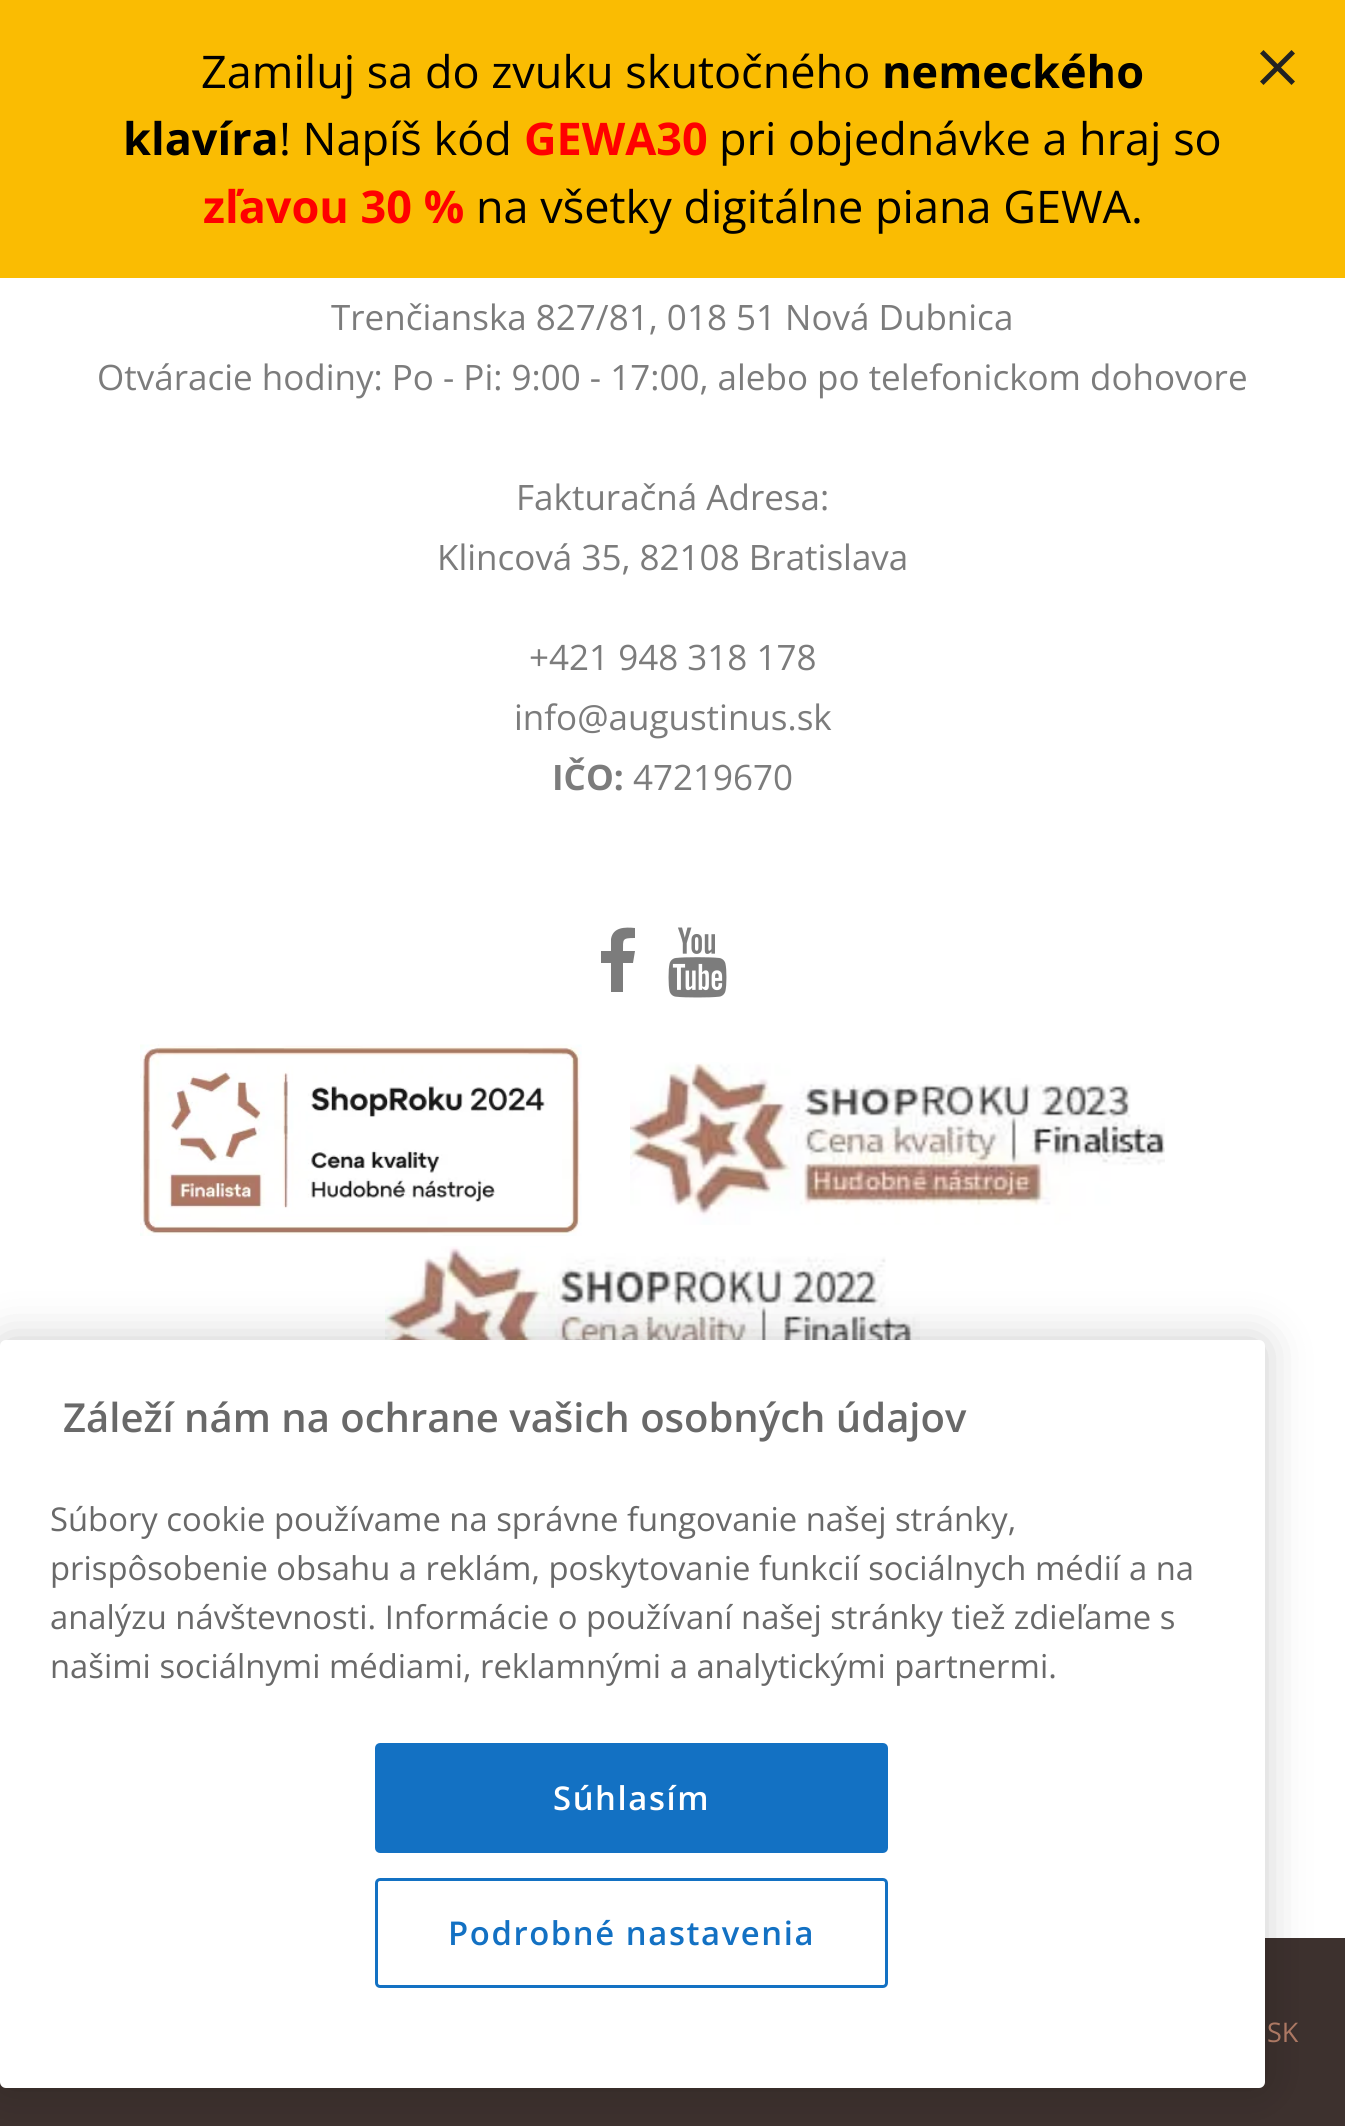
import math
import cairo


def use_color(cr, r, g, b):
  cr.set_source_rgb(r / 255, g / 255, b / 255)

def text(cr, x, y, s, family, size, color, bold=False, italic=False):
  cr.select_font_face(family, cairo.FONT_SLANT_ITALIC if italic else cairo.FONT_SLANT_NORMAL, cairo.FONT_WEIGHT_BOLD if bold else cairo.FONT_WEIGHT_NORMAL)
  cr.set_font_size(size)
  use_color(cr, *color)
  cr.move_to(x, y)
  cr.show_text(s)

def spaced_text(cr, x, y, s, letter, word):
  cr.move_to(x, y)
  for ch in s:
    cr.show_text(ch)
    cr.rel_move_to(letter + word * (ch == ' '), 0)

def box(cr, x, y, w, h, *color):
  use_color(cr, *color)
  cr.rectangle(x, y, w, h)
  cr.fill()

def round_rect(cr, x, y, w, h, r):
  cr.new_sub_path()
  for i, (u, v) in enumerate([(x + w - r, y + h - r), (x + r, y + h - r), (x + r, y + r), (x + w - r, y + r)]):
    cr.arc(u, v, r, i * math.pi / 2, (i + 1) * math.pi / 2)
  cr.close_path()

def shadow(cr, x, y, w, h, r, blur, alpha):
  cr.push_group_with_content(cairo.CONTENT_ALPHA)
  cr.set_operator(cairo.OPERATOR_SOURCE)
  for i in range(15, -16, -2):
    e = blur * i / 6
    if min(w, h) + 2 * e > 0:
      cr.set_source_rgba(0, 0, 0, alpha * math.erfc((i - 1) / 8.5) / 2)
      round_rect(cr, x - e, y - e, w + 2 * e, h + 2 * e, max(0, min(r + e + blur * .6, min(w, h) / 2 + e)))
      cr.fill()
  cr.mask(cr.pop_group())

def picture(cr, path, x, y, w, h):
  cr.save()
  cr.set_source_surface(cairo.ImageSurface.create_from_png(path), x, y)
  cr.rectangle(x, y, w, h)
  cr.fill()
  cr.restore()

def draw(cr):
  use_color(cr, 255, 255, 255)
  cr.paint()
  box(cr, 0, 0, 1345, 278, 250, 188, 2)
  use_color(cr, 34, 34, 34)
  cr.new_path()
  cr.move_to(1295, 53.5)
  cr.line_to(1281, 67.5)
  cr.line_to(1295, 81.5)
  cr.line_to(1291.5, 85)
  cr.line_to(1277.5, 71)
  cr.line_to(1263.5, 85)
  cr.line_to(1260, 81.5)
  cr.line_to(1274, 67.5)
  cr.line_to(1260, 53.5)
  cr.line_to(1263.5, 50)
  cr.line_to(1277.5, 64)
  cr.line_to(1291.5, 50)
  cr.close_path()
  cr.fill()
  use_color(cr, 124, 124, 124)
  cr.new_path()
  cr.move_to(635, 928)
  cr.line_to(635, 938)
  cr.curve_to(622, 938, 623, 939, 623, 951)
  cr.line_to(635, 951)
  cr.line_to(633, 963)
  cr.line_to(623, 963)
  cr.line_to(623, 992)
  cr.line_to(611, 992)
  cr.line_to(611, 963)
  cr.line_to(601, 963)
  cr.line_to(601, 951)
  cr.line_to(611, 951)
  cr.line_to(611, 939)
  cr.curve_to(613, 927, 625, 927, 635, 928)
  cr.close_path()
  cr.fill()
  picture(cr, "img_01.png", 668, 927, 59, 71)
  picture(cr, "img_02.png", 140, 1044, 442, 192)
  picture(cr, "img_03.png", 630, 1062, 535, 163)
  picture(cr, "img_04.png", 385, 1246, 535, 94)
  box(cr, 0, 1938, 1345, 188, 61, 49, 46)
  use_color(cr, 0, 0, 0)
  shadow(cr, 0, 1340, 1265, 748, 6, 22.5, 0.2)
  use_color(cr, 255, 255, 255)
  round_rect(cr, 0, 1340, 1265, 748, 6)
  cr.fill()
  use_color(cr, 19, 113, 195)
  round_rect(cr, 376.5, 1744.5, 510, 107, 3.5)
  cr.fill_preserve()
  cr.set_line_width(3)
  cr.stroke()
  round_rect(cr, 376.5, 1879.5, 510, 107, 3.5)
  cr.stroke()
  text(cr, 201, 88, "Zamiluj sa do zvuku skutočného", "Open Sans", 45, (0, 0, 0))
  text(cr, 882, 88, "nemeckého", "Open Sans", 45, (0, 0, 0), bold=True)
  text(cr, 123, 155, "klavíra", "Open Sans", 45, (0, 0, 0), bold=True)
  text(cr, 279, 155, "! Napíš kód", "Open Sans", 45, (0, 0, 0))
  text(cr, 524, 155, "GEWA30", "Open Sans", 45, (255, 0, 0), bold=True)
  text(cr, 719, 155, "pri objednávke a hraj so", "Open Sans", 45, (0, 0, 0))
  text(cr, 203, 223, "zľavou 30 %", "Open Sans", 45, (255, 0, 0), bold=True)
  text(cr, 476, 223, "na všetky digitálne piana GEWA.", "Open Sans", 45, (0, 0, 0))
  text(cr, 331, 330, "Trenčianska 827/81, 018 51 Nová Dubnica", "Open Sans", 35, (124, 124, 124))
  text(cr, 97, 390, "Otváracie hodiny: Po - Pi: 9:00 - 17:00, alebo po telefonickom dohovore", "Open Sans", 35, (124, 124, 124))
  text(cr, 516, 510, "Fakturačná Adresa:", "Open Sans", 35, (124, 124, 124))
  text(cr, 437, 570, "Klincová 35, 82108 Bratislava", "Open Sans", 35, (124, 124, 124))
  text(cr, 529, 670, "+421 948 318 178", "Open Sans", 35, (124, 124, 124))
  text(cr, 514, 730, "info@augustinus.sk", "Open Sans", 35, (124, 124, 124))
  text(cr, 552, 790, "IČO:", "Open Sans", 35, (124, 124, 124), bold=True)
  text(cr, 633, 790, "47219670", "Open Sans", 35, (124, 124, 124))
  text(cr, 1267, 2042, "SK", "Open Sans", 27, (172, 120, 99))
  text(cr, 63, 1432, "Záleží nám na ochrane vašich osobných údajov", "Open Sans SemiBold", 40, (105, 105, 105))
  text(cr, 50, 1531, "Súbory cookie používame na správne fungovanie našej stránky,", "Open Sans", 32.8, (105, 105, 105))
  text(cr, 50, 1580, "prispôsobenie obsahu a reklám, poskytovanie funkcií sociálnych médií a na", "Open Sans", 32.8, (105, 105, 105))
  text(cr, 50, 1629, "analýzu návštevnosti. Informácie o používaní našej stránky tiež zdieľame s", "Open Sans", 32.8, (105, 105, 105))
  text(cr, 50, 1678, "našimi sociálnymi médiami, reklamnými a analytickými partnermi.", "Open Sans", 32.8, (105, 105, 105))
  cr.select_font_face("Open Sans SemiBold")
  use_color(cr, 255, 255, 255)
  spaced_text(cr, 553, 1810, "Súhlasím", 1.6, 0)
  use_color(cr, 19, 113, 195)
  spaced_text(cr, 448, 1945, "Podrobné nastavenia", 1.6, 0)


surface = cairo.ImageSurface(cairo.FORMAT_RGB24, 1345, 2126)
cr = cairo.Context(surface)
options = cairo.FontOptions()
options.set_hint_metrics(cairo.HINT_METRICS_OFF)
options.set_hint_style(cairo.HINT_STYLE_NONE)
cr.set_font_options(options)
cr.set_miter_limit(4)
draw(cr)
surface.write_to_png("out.png")
